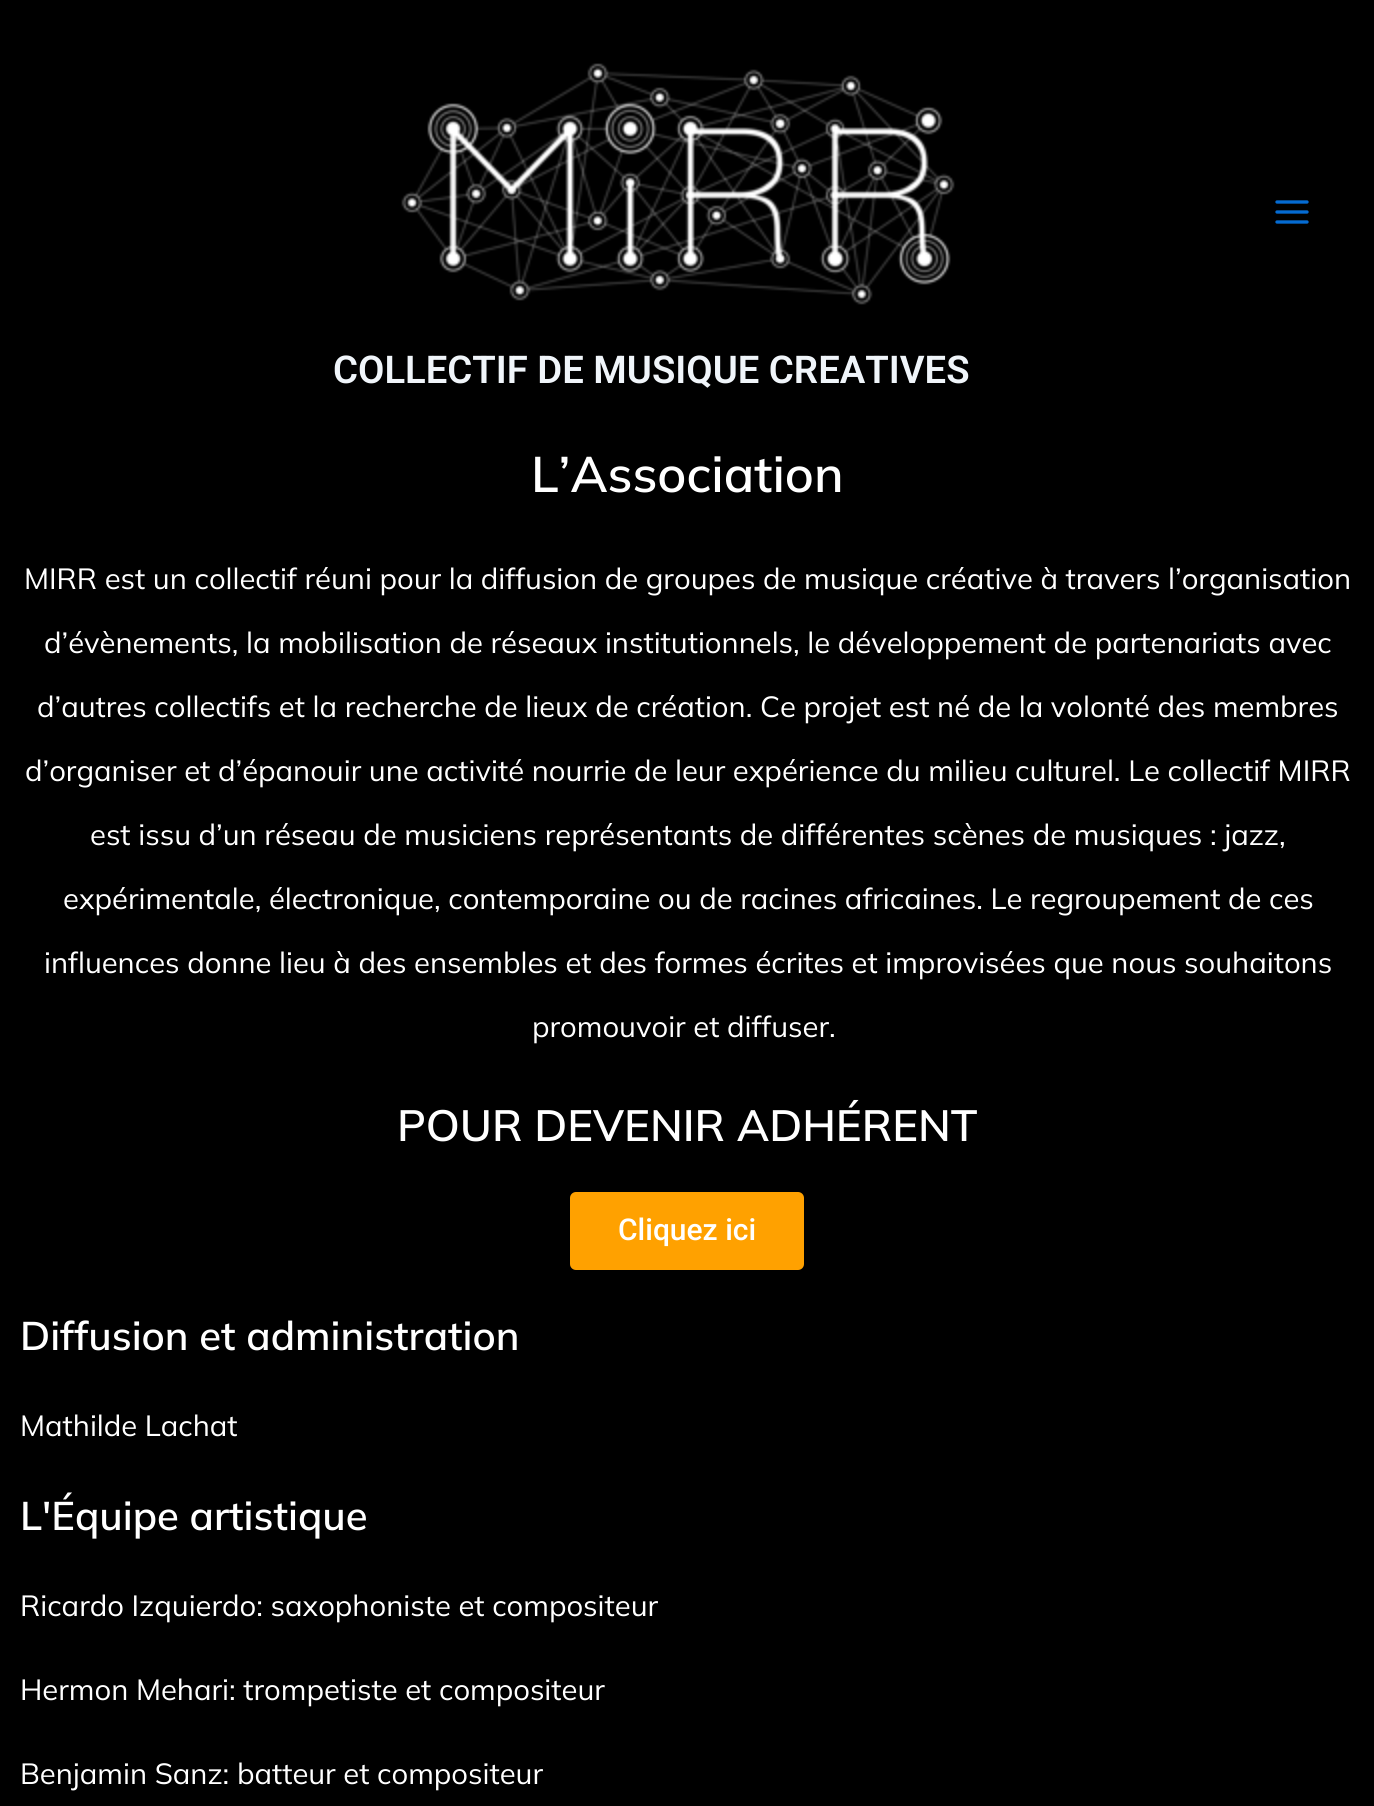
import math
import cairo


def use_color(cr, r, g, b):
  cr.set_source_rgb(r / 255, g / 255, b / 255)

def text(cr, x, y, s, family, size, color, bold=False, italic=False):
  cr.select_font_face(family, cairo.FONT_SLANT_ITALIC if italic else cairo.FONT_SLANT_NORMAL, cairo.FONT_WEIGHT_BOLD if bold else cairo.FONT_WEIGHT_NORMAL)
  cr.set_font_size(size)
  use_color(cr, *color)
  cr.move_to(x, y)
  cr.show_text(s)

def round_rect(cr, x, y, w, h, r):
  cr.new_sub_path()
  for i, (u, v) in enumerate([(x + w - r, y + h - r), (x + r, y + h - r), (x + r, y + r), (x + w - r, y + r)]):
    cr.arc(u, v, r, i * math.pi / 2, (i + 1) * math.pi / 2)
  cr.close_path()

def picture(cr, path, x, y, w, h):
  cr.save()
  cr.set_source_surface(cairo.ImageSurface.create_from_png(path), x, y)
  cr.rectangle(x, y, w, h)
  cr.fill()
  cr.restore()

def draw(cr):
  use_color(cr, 0, 0, 0)
  cr.paint()
  picture(cr, "img_01.png", 1275, 200, 34, 24)
  picture(cr, "img_02.png", 401, 63, 554, 242)
  use_color(cr, 255, 161, 0)
  round_rect(cr, 570, 1192, 234, 78, 6)
  cr.fill()
  text(cr, 333, 383, "COLLECTIF DE MUSIQUE CREATIVES", "Roboto SemiBold", 38.25, (240, 245, 250))
  text(cr, 531, 492, "L’Association", "Mulish SemiBold", 50, (255, 255, 255))
  text(cr, 24, 589, "MIRR est un collectif réuni pour la diffusion de groupes de musique créative à travers l’organisation", "Mulish", 29.2, (255, 255, 255))
  text(cr, 44, 653, "d’évènements, la mobilisation de réseaux institutionnels, le développement de partenariats avec", "Mulish", 29.2, (255, 255, 255))
  text(cr, 37, 717, "d’autres collectifs et la recherche de lieux de création. Ce projet est né de la volonté des membres", "Mulish", 29.2, (255, 255, 255))
  text(cr, 25, 781, "d’organiser et d’épanouir une activité nourrie de leur expérience du milieu culturel. Le collectif MIRR", "Mulish", 29.2, (255, 255, 255))
  text(cr, 90, 845, "est issu d’un réseau de musiciens représentants de différentes scènes de musiques : jazz,", "Mulish", 29.2, (255, 255, 255))
  text(cr, 63, 909, "expérimentale, électronique, contemporaine ou de racines africaines. Le regroupement de ces", "Mulish", 29.2, (255, 255, 255))
  text(cr, 44, 973, "influences donne lieu à des ensembles et des formes écrites et improvisées que nous souhaitons", "Mulish", 29.2, (255, 255, 255))
  text(cr, 532, 1037, "promouvoir et diffuser.", "Mulish", 29.2, (255, 255, 255))
  text(cr, 397, 1141, "POUR DEVENIR ADHÉRENT", "Mulish SemiBold", 43.75, (255, 255, 255))
  text(cr, 618, 1240, "Cliquez ici", "Roboto Medium", 30, (255, 255, 255))
  text(cr, 20, 1350, "Diffusion et administration", "Mulish SemiBold", 40, (255, 255, 255))
  text(cr, 20, 1436, "Mathilde Lachat", "Mulish", 29.2, (255, 255, 255))
  text(cr, 20, 1530, "L'Équipe artistique", "Mulish SemiBold", 40, (255, 255, 255))
  text(cr, 20, 1616, "Ricardo Izquierdo: saxophoniste et compositeur", "Mulish", 29.2, (255, 255, 255))
  text(cr, 20, 1700, "Hermon Mehari: trompetiste et compositeur", "Mulish", 29.2, (255, 255, 255))
  text(cr, 20, 1784, "Benjamin Sanz: batteur et compositeur", "Mulish", 29.2, (255, 255, 255))


surface = cairo.ImageSurface(cairo.FORMAT_RGB24, 1374, 1806)
cr = cairo.Context(surface)
options = cairo.FontOptions()
options.set_hint_metrics(cairo.HINT_METRICS_OFF)
options.set_hint_style(cairo.HINT_STYLE_NONE)
cr.set_font_options(options)
cr.set_miter_limit(4)
draw(cr)
surface.write_to_png("out.png")
